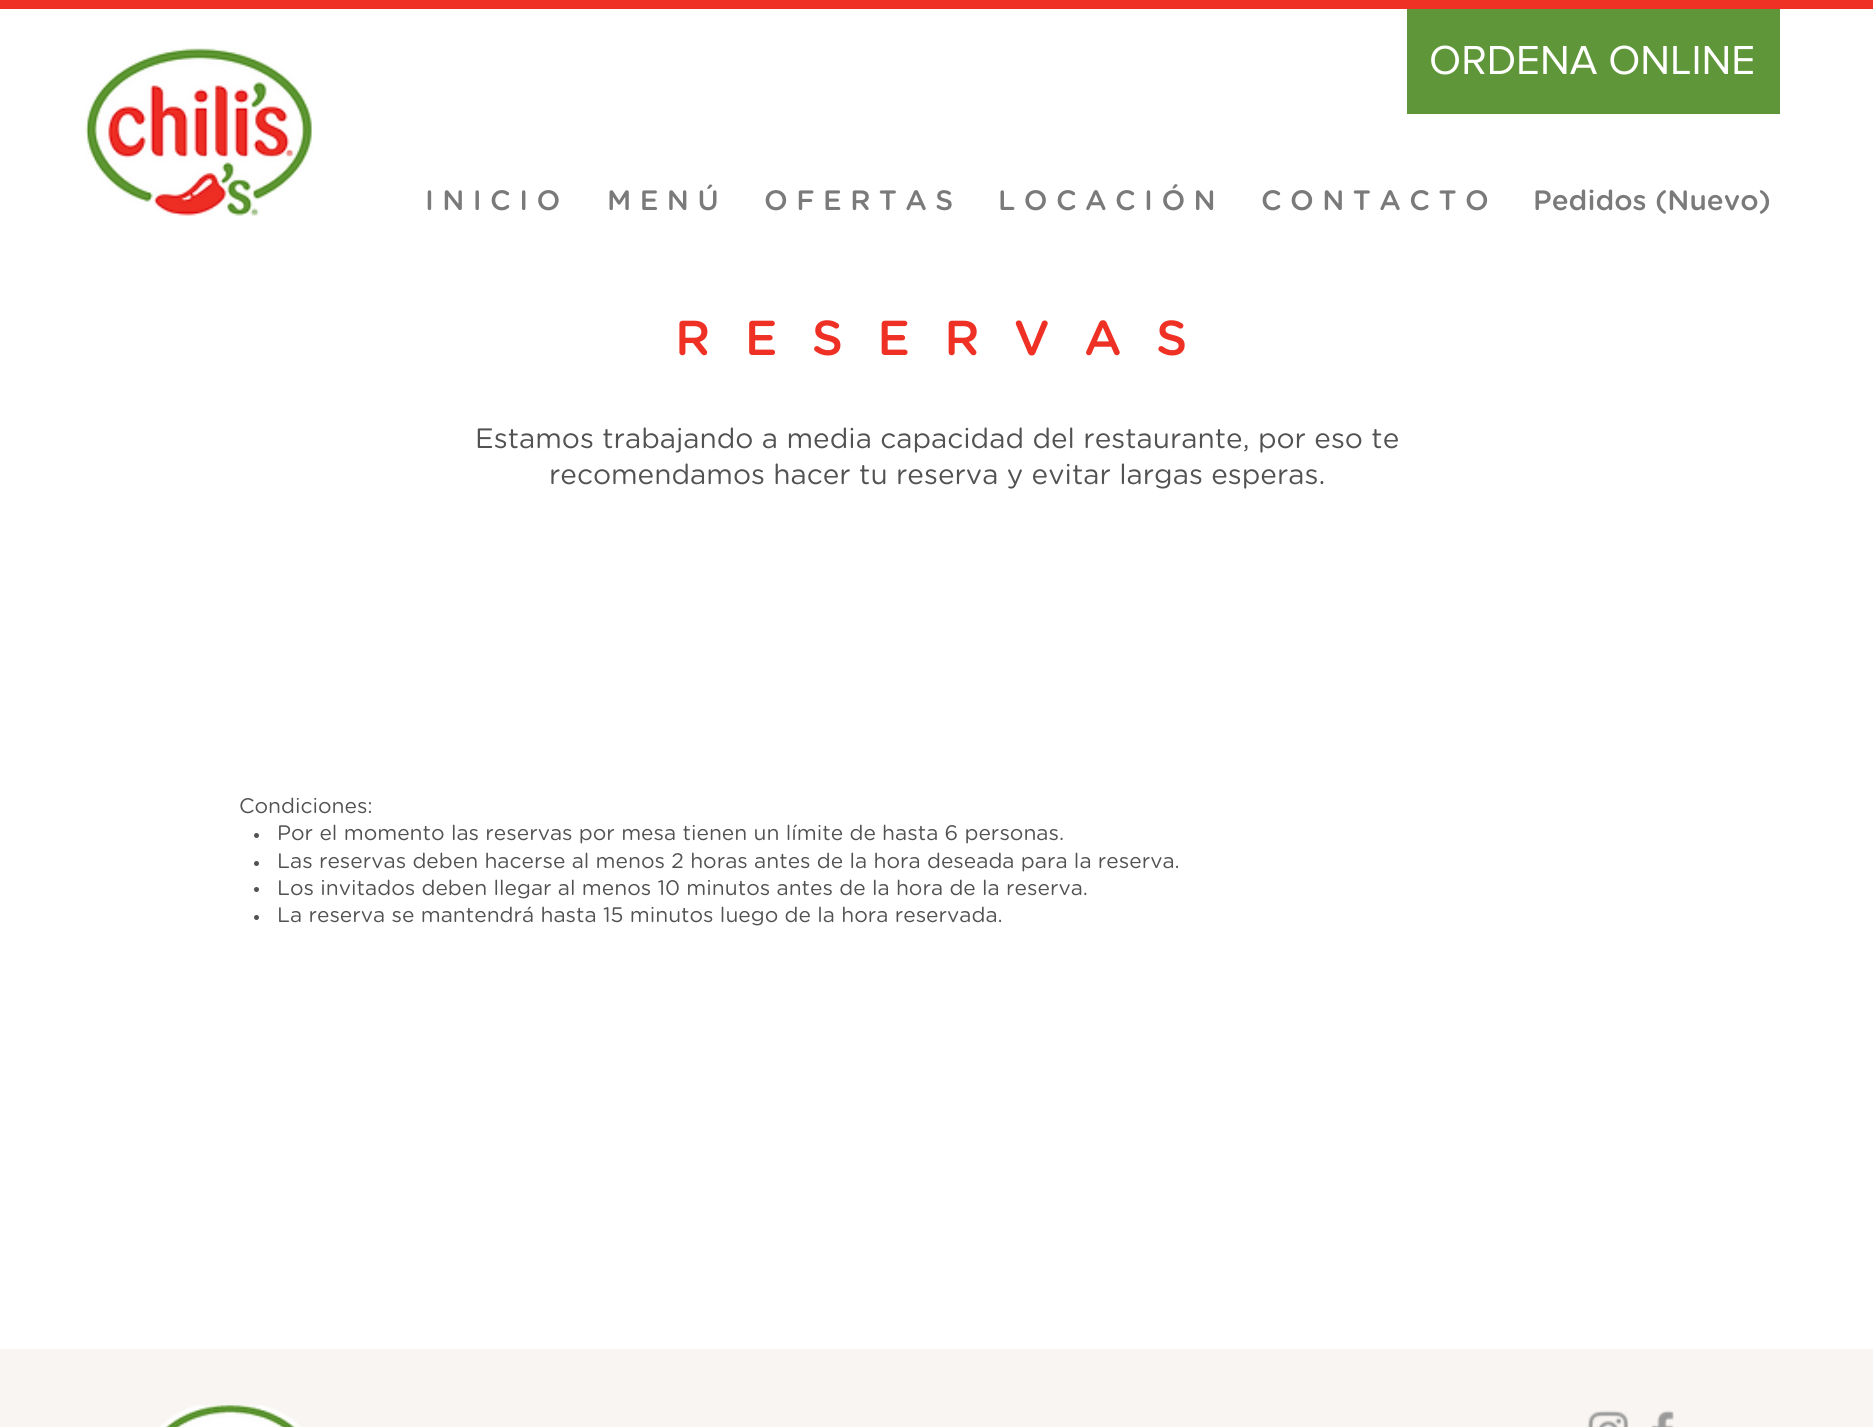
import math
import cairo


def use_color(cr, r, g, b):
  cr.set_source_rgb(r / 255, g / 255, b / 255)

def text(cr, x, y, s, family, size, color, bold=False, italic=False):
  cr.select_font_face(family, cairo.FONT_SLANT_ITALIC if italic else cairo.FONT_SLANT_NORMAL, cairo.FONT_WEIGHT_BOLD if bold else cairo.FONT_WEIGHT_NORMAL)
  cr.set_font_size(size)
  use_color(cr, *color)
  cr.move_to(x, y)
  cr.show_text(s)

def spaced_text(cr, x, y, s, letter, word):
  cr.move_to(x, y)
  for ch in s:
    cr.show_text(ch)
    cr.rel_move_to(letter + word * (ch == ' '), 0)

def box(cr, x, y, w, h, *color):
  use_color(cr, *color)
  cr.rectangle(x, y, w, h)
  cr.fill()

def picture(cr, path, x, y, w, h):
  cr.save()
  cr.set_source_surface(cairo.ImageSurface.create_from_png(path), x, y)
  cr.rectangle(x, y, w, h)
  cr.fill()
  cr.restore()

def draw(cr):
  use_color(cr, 255, 255, 255)
  cr.paint()
  box(cr, 0, 0, 1873, 9, 238, 49, 36)
  picture(cr, "img_01.png", 85, 48, 228, 168)
  box(cr, 1407, 9, 373, 105, 95, 150, 57)
  use_color(cr, 82, 82, 82)
  cr.arc(256.5, 835.5, 2.5, 0, 2 * math.pi)
  cr.fill()
  cr.arc(256.5, 863.5, 2.5, 0, 2 * math.pi)
  cr.fill()
  cr.arc(256.5, 889.5, 2.5, 0, 2 * math.pi)
  cr.fill()
  cr.arc(256.5, 917.5, 2.5, 0, 2 * math.pi)
  cr.fill()
  box(cr, 0, 1349, 1873, 78, 248, 245, 242)
  picture(cr, "img_02.png", 160, 1405, 141, 22)
  picture(cr, "img_03.png", 1587, 1410, 42, 17)
  picture(cr, "img_04.png", 1651, 1410, 23, 17)
  text(cr, 1429, 74, "ORDENA ONLINE", "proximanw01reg", 42, (255, 255, 255))
  text(cr, 425, 210, "I N I C I O", "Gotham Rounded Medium", 28, (122, 122, 122))
  text(cr, 607, 210, "M E N Ú", "Gotham Rounded Medium", 28, (122, 122, 122))
  text(cr, 764, 210, "O F E R T A S", "Gotham Rounded Medium", 28, (122, 122, 122))
  text(cr, 998, 210, "L O C A C I Ó N", "Gotham Rounded Medium", 28, (122, 122, 122))
  text(cr, 1261, 210, "C O N T A C T O", "Gotham Rounded Medium", 28, (122, 122, 122))
  text(cr, 1533, 210, "Pedidos (Nuevo)", "Gotham Rounded Medium", 28, (122, 122, 122))
  cr.set_font_size(49)
  use_color(cr, 238, 49, 36)
  spaced_text(cr, 675, 355, "R E S E R V A S", 9.75, 0)
  text(cr, 475, 448, "Estamos trabajando a media capacidad del restaurante, por eso te", "Gotham Rounded", 28, (82, 82, 82))
  text(cr, 549, 484, "recomendamos hacer tu reserva y evitar largas esperas.", "Gotham Rounded", 28, (82, 82, 82))
  text(cr, 239, 813, "Condiciones:", "Gotham Rounded", 21, (82, 82, 82))
  text(cr, 277, 840, "Por el momento las reservas por mesa tienen un límite de hasta 6 personas.", "Gotham Rounded", 21, (82, 82, 82))
  text(cr, 277, 868, "Las reservas deben hacerse al menos 2 horas antes de la hora deseada para la reserva.", "Gotham Rounded", 21, (82, 82, 82))
  text(cr, 277, 895, "Los invitados deben llegar al menos 10 minutos antes de la hora de la reserva.", "Gotham Rounded", 21, (82, 82, 82))
  text(cr, 277, 922, "La reserva se mantendrá hasta 15 minutos luego de la hora reservada.", "Gotham Rounded", 21, (82, 82, 82))


surface = cairo.ImageSurface(cairo.FORMAT_RGB24, 1873, 1427)
cr = cairo.Context(surface)
options = cairo.FontOptions()
options.set_hint_metrics(cairo.HINT_METRICS_OFF)
options.set_hint_style(cairo.HINT_STYLE_NONE)
cr.set_font_options(options)
cr.set_miter_limit(4)
draw(cr)
surface.write_to_png("out.png")
